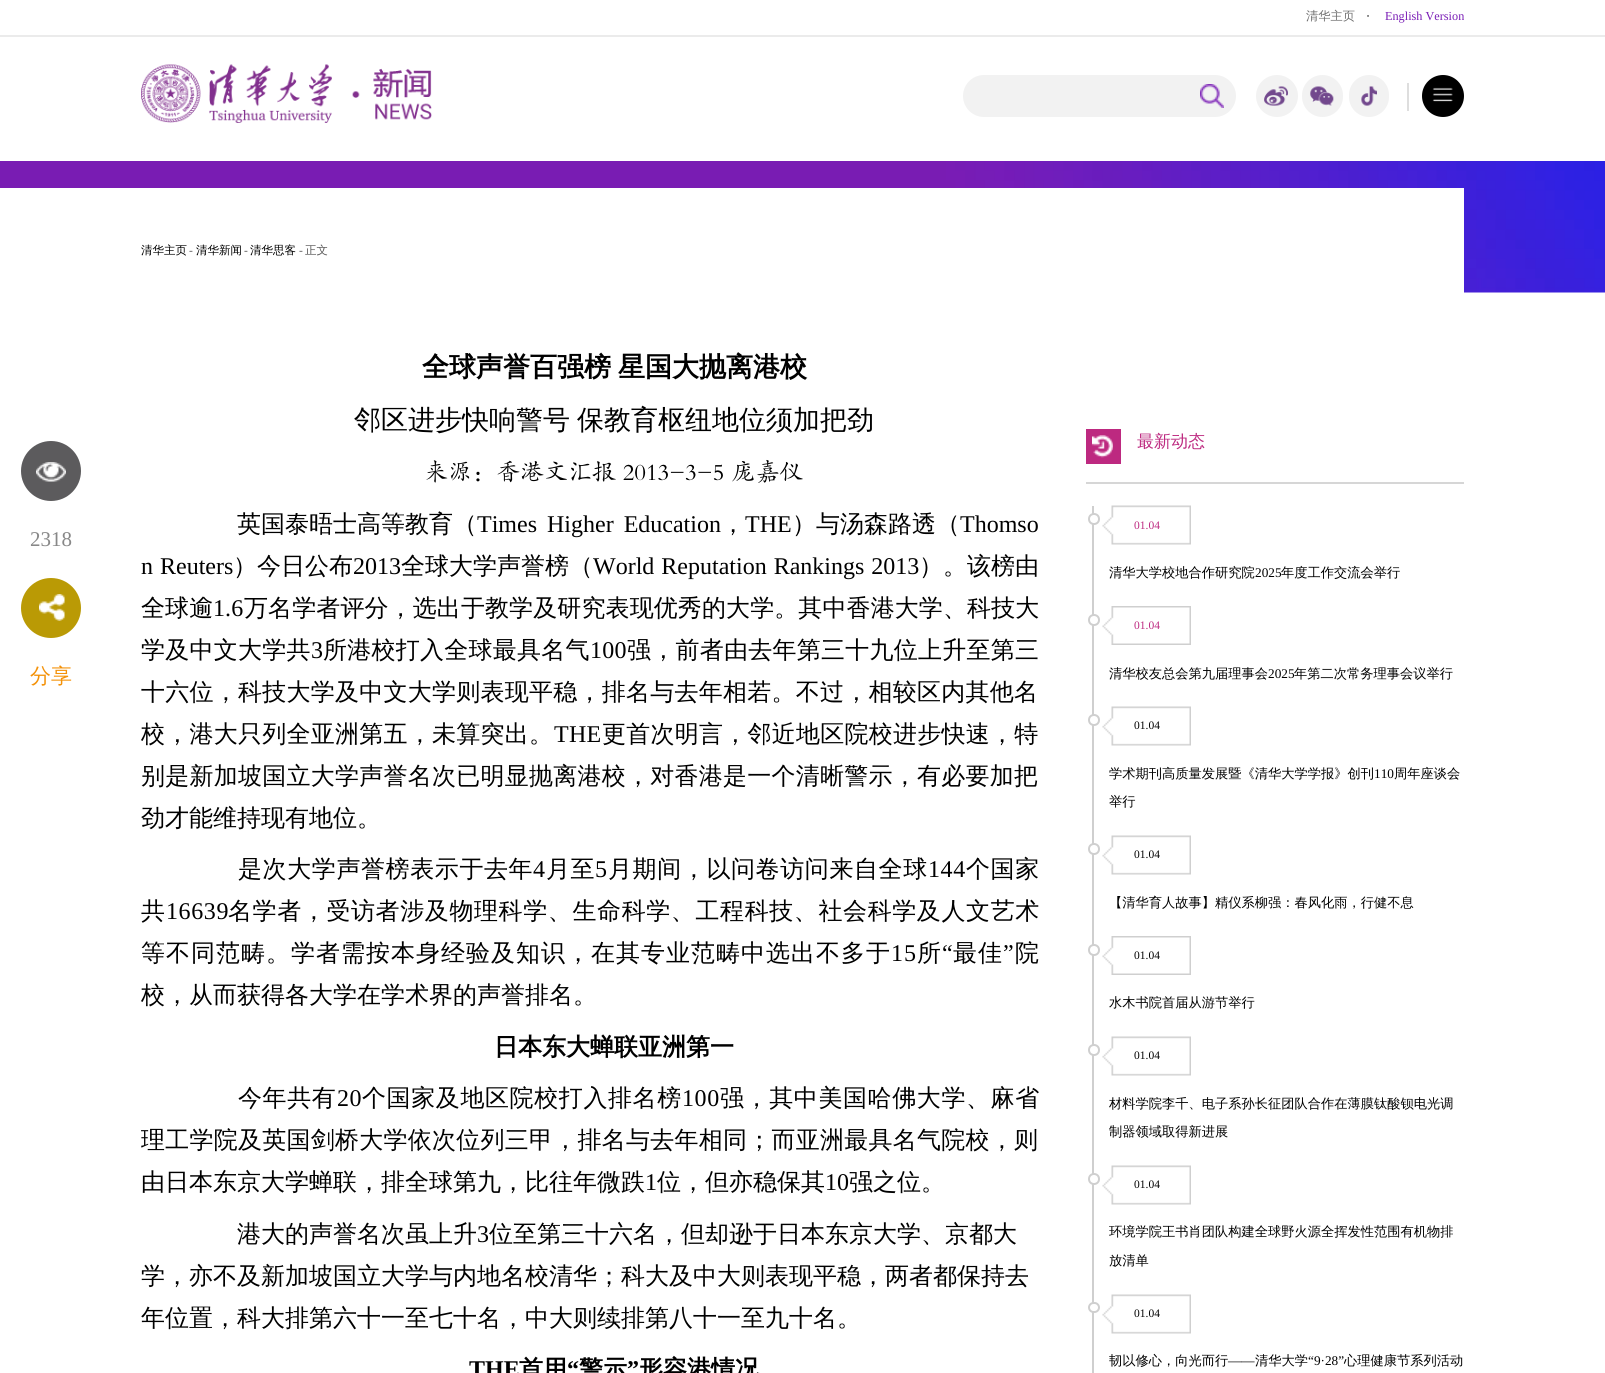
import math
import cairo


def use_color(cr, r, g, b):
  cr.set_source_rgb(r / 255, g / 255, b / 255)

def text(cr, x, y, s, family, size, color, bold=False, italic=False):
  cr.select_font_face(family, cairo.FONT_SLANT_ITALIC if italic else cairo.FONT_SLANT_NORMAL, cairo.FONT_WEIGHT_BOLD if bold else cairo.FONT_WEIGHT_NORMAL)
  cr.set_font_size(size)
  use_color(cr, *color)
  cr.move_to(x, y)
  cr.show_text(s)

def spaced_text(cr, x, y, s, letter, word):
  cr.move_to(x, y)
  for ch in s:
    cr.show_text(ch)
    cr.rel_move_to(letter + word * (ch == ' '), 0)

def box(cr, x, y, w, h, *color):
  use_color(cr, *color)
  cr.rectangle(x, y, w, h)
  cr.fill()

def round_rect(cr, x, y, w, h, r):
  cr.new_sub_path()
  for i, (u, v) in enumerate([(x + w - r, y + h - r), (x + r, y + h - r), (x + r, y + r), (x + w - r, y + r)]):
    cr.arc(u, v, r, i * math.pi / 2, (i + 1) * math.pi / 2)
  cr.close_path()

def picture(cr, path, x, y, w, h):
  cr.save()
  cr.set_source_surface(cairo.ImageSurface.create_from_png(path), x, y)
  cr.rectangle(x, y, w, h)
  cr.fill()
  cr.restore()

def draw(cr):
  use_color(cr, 255, 255, 255)
  cr.paint()
  picture(cr, "img_01.png", 141, 64, 291, 59)
  use_color(cr, 242, 242, 242)
  round_rect(cr, 963, 75, 273, 42, 21)
  cr.fill()
  picture(cr, "img_02.png", 1200, 84, 24, 24)
  cr.arc(1277, 96, 21, 0, 2 * math.pi)
  cr.fill()
  picture(cr, "img_03.png", 1264, 86, 24, 20)
  round_rect(cr, 1302, 75, 41, 42, 20.5)
  cr.fill()
  picture(cr, "img_04.png", 1310, 86, 24, 20)
  round_rect(cr, 1349, 75, 40, 42, 20)
  cr.fill()
  picture(cr, "img_05.png", 1361, 86, 16, 20)
  box(cr, 1407, 83, 2, 28, 222, 222, 222)
  use_color(cr, 0, 0, 0)
  cr.arc(1443, 96, 21, 0, 2 * math.pi)
  cr.fill()
  picture(cr, "img_06.png", 1432, 87, 21, 15)
  box(cr, 0, 35, 1605, 2, 235, 235, 235)
  picture(cr, "img_07.png", 0, 161, 1605, 132)
  box(cr, 0, 188, 1464, 105, 255, 255, 255)
  use_color(cr, 92, 91, 93)
  cr.arc(51, 471, 30, 0, 2 * math.pi)
  cr.fill()
  picture(cr, "img_08.png", 36, 462, 30, 20)
  use_color(cr, 186, 154, 5)
  cr.arc(51, 608, 30, 0, 2 * math.pi)
  cr.fill()
  picture(cr, "img_09.png", 39, 594, 26, 27)
  box(cr, 1086, 482, 378, 2, 214, 214, 214)
  box(cr, 1086, 429, 35, 35, 189, 41, 128)
  picture(cr, "img_10.png", 1092, 435, 21, 23)
  box(cr, 1092, 506, 2, 867, 207, 207, 207)
  use_color(cr, 255, 255, 255)
  cr.arc(1094, 519, 5, 0, 2 * math.pi)
  cr.fill_preserve()
  use_color(cr, 207, 207, 207)
  cr.stroke()
  picture(cr, "img_11.png", 1102, 505, 89, 40)
  use_color(cr, 255, 255, 255)
  cr.arc(1094, 620, 5, 0, 2 * math.pi)
  cr.fill_preserve()
  use_color(cr, 207, 207, 207)
  cr.stroke()
  picture(cr, "img_12.png", 1102, 606, 89, 39)
  use_color(cr, 255, 255, 255)
  cr.arc(1094, 720, 5, 0, 2 * math.pi)
  cr.fill_preserve()
  use_color(cr, 207, 207, 207)
  cr.stroke()
  picture(cr, "img_11.png", 1102, 706, 89, 40)
  use_color(cr, 255, 255, 255)
  cr.arc(1094, 849, 5, 0, 2 * math.pi)
  cr.fill_preserve()
  use_color(cr, 207, 207, 207)
  cr.stroke()
  picture(cr, "img_11.png", 1102, 835, 89, 40)
  use_color(cr, 255, 255, 255)
  cr.arc(1094, 950, 5, 0, 2 * math.pi)
  cr.fill_preserve()
  use_color(cr, 207, 207, 207)
  cr.stroke()
  picture(cr, "img_12.png", 1102, 936, 89, 39)
  use_color(cr, 255, 255, 255)
  cr.arc(1094, 1050, 5, 0, 2 * math.pi)
  cr.fill_preserve()
  use_color(cr, 207, 207, 207)
  cr.stroke()
  picture(cr, "img_11.png", 1102, 1036, 89, 40)
  use_color(cr, 255, 255, 255)
  cr.arc(1094, 1179, 5, 0, 2 * math.pi)
  cr.fill_preserve()
  use_color(cr, 207, 207, 207)
  cr.stroke()
  picture(cr, "img_11.png", 1102, 1165, 89, 40)
  use_color(cr, 255, 255, 255)
  round_rect(cr, 1089, 1303, 10, 9, 4.5)
  cr.fill_preserve()
  use_color(cr, 207, 207, 207)
  cr.stroke()
  picture(cr, "img_11.png", 1102, 1294, 89, 40)
  text(cr, 1306, 20, "清华主页", "WenQuanYi Zen Hei Medium", 12.25, (112, 112, 112))
  text(cr, 1366, 20, "·", "Liberation Serif", 12.25, (112, 112, 112), bold=True)
  text(cr, 1385, 20, "English Version", "Liberation Serif", 12.25, (121, 28, 181))
  text(cr, 141, 254, "清华主页", "WenQuanYi Zen Hei Medium", 11.5, (0, 0, 0))
  text(cr, 189, 254, "-", "Liberation Serif", 11.5, (87, 86, 86))
  text(cr, 196, 254, "清华新闻", "WenQuanYi Zen Hei Medium", 11.5, (0, 0, 0))
  text(cr, 244, 254, "-", "Liberation Serif", 11.5, (87, 86, 86))
  text(cr, 250, 254, "清华思客", "WenQuanYi Zen Hei Medium", 11.5, (0, 0, 0))
  text(cr, 299, 254, "-", "Liberation Serif", 11.5, (87, 86, 86))
  text(cr, 305, 254, "正文", "WenQuanYi Zen Hei Medium", 11.5, (87, 86, 86))
  text(cr, 30, 546, "2318", "Liberation Serif", 21, (136, 136, 136))
  text(cr, 30, 683, "分享", "WenQuanYi Zen Hei Medium", 21, (244, 146, 9))
  cr.select_font_face("WenQuanYi Zen Hei", cairo.FONT_SLANT_NORMAL, cairo.FONT_WEIGHT_BOLD)
  cr.set_font_size(27)
  use_color(cr, 0, 0, 0)
  spaced_text(cr, 422, 376, "全球声誉百强榜 星国大抛离港校", 0, -1)
  cr.select_font_face("WenQuanYi Zen Hei Medium")
  spaced_text(cr, 354, 429, "邻区进步快响警号 保教育枢纽地位须加把劲", 0, -1)
  text(cr, 424, 480, "来源：香港文汇报 2013-3-5 庞嘉仪", "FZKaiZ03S", 24, (0, 0, 0))
  text(cr, 237, 532, "英国泰晤士高等教育（", "WenQuanYi Zen Hei Medium", 24, (0, 0, 0))
  cr.select_font_face("Liberation Serif")
  spaced_text(cr, 477, 532, "Times Higher Education", 0, 4)
  text(cr, 721, 532, "，", "WenQuanYi Zen Hei Medium", 24, (0, 0, 0))
  text(cr, 745, 532, "THE", "Liberation Serif", 24, (0, 0, 0))
  text(cr, 792, 532, "）与汤森路透（", "WenQuanYi Zen Hei Medium", 24, (0, 0, 0))
  text(cr, 960, 532, "Thomso", "Liberation Serif", 24, (0, 0, 0))
  spaced_text(cr, 141, 574, "n Reuters", 0, 1)
  text(cr, 233, 574, "）今日公布", "WenQuanYi Zen Hei Medium", 24, (0, 0, 0))
  text(cr, 353, 574, "2013", "Liberation Serif", 24, (0, 0, 0))
  text(cr, 401, 574, "全球大学声誉榜（", "WenQuanYi Zen Hei Medium", 24, (0, 0, 0))
  cr.select_font_face("Liberation Serif")
  spaced_text(cr, 593, 574, "World Reputation Rankings 2013", 0, 1)
  text(cr, 919, 574, "）。该榜由", "WenQuanYi Zen Hei Medium", 24, (0, 0, 0))
  spaced_text(cr, 141, 616, "全球逾", 0.1, 0)
  cr.select_font_face("Liberation Serif")
  spaced_text(cr, 213, 616, "1.6", 0.1, 0)
  cr.select_font_face("WenQuanYi Zen Hei Medium")
  spaced_text(cr, 244, 616, "万名学者评分，选出于教学及研究表现优秀的大学。其中香港大学、科技大", 0.1, 0)
  spaced_text(cr, 141, 658, "学及中文大学共", 0.25, 0)
  cr.select_font_face("Liberation Serif")
  spaced_text(cr, 311, 658, "3", 0.25, 0)
  cr.select_font_face("WenQuanYi Zen Hei Medium")
  spaced_text(cr, 323, 658, "所港校打入全球最具名气", 0.25, 0)
  cr.select_font_face("Liberation Serif")
  spaced_text(cr, 590, 658, "100", 0.25, 0)
  cr.select_font_face("WenQuanYi Zen Hei Medium")
  spaced_text(cr, 627, 658, "强，前者由去年第三十九位上升至第三", 0.25, 0)
  spaced_text(cr, 141, 700, "十六位，科技大学及中文大学则表现平稳，排名与去年相若。不过，相较区内其他名", 0.25, 0)
  spaced_text(cr, 141, 742, "校，港大只列全亚洲第五，未算突出。", 0.25, 0)
  cr.select_font_face("Liberation Serif")
  spaced_text(cr, 554, 742, "THE", 0.25, 0)
  cr.select_font_face("WenQuanYi Zen Hei Medium")
  spaced_text(cr, 602, 742, "更首次明言，邻近地区院校进步快速，特", 0.25, 0)
  spaced_text(cr, 141, 784, "别是新加坡国立大学声誉名次已明显抛离港校，对香港是一个清晰警示，有必要加把", 0.25, 0)
  text(cr, 141, 826, "劲才能维持现有地位。", "WenQuanYi Zen Hei Medium", 24, (0, 0, 0))
  spaced_text(cr, 238, 877, "是次大学声誉榜表示于去年", 0.6, 0)
  cr.select_font_face("Liberation Serif")
  spaced_text(cr, 533, 877, "4", 0.6, 0)
  cr.select_font_face("WenQuanYi Zen Hei Medium")
  spaced_text(cr, 546, 877, "月至", 0.6, 0)
  cr.select_font_face("Liberation Serif")
  spaced_text(cr, 595, 877, "5", 0.6, 0)
  cr.select_font_face("WenQuanYi Zen Hei Medium")
  spaced_text(cr, 608, 877, "月期间，以问卷访问来自全球", 0.6, 0)
  cr.select_font_face("Liberation Serif")
  spaced_text(cr, 928, 877, "144", 0.6, 0)
  cr.select_font_face("WenQuanYi Zen Hei Medium")
  spaced_text(cr, 966, 877, "个国家", 0.6, 0)
  spaced_text(cr, 141, 919, "共", 0.6, 0)
  cr.select_font_face("Liberation Serif")
  spaced_text(cr, 166, 919, "16639", 0.6, 0)
  cr.select_font_face("WenQuanYi Zen Hei Medium")
  spaced_text(cr, 228, 919, "名学者，受访者涉及物理科学、生命科学、工程科技、社会科学及人文艺术", 0.6, 0)
  spaced_text(cr, 141, 961, "等不同范畴。学者需按本身经验及知识，在其专业范畴中选出不多于", 1, 0)
  cr.select_font_face("Liberation Serif")
  spaced_text(cr, 891, 961, "15", 1, 0)
  cr.select_font_face("WenQuanYi Zen Hei Medium")
  spaced_text(cr, 917, 961, "所", 1, 0)
  cr.select_font_face("Liberation Serif")
  spaced_text(cr, 942, 961, "“", 1, 0)
  cr.select_font_face("WenQuanYi Zen Hei Medium")
  spaced_text(cr, 953, 961, "最佳", 1, 0)
  cr.select_font_face("Liberation Serif")
  spaced_text(cr, 1003, 961, "”", 1, 0)
  cr.select_font_face("WenQuanYi Zen Hei Medium")
  spaced_text(cr, 1015, 961, "院", 1, 0)
  text(cr, 141, 1003, "校，从而获得各大学在学术界的声誉排名。", "WenQuanYi Zen Hei Medium", 24, (0, 0, 0))
  text(cr, 494, 1055, "日本东大蝉联亚洲第一", "WenQuanYi Zen Hei", 24, (0, 0, 0), bold=True)
  cr.select_font_face("WenQuanYi Zen Hei Medium")
  spaced_text(cr, 238, 1106, "今年共有", 0.6, 0)
  cr.select_font_face("Liberation Serif")
  spaced_text(cr, 337, 1106, "20", 0.6, 0)
  cr.select_font_face("WenQuanYi Zen Hei Medium")
  spaced_text(cr, 362, 1106, "个国家及地区院校打入排名榜", 0.6, 0)
  cr.select_font_face("Liberation Serif")
  spaced_text(cr, 682, 1106, "100", 0.6, 0)
  cr.select_font_face("WenQuanYi Zen Hei Medium")
  spaced_text(cr, 720, 1106, "强，其中美国哈佛大学、麻省", 0.6, 0)
  spaced_text(cr, 141, 1148, "理工学院及英国剑桥大学依次位列三甲，排名与去年相同；而亚洲最具名气院校，则", 0.25, 0)
  text(cr, 141, 1190, "由日本东京大学蝉联，排全球第九，比往年微跌", "WenQuanYi Zen Hei Medium", 24, (0, 0, 0))
  text(cr, 645, 1190, "1", "Liberation Serif", 24, (0, 0, 0))
  text(cr, 657, 1190, "位，但亦稳保其", "WenQuanYi Zen Hei Medium", 24, (0, 0, 0))
  text(cr, 825, 1190, "10", "Liberation Serif", 24, (0, 0, 0))
  text(cr, 849, 1190, "强之位。", "WenQuanYi Zen Hei Medium", 24, (0, 0, 0))
  text(cr, 237, 1242, "港大的声誉名次虽上升", "WenQuanYi Zen Hei Medium", 24, (0, 0, 0))
  text(cr, 477, 1242, "3", "Liberation Serif", 24, (0, 0, 0))
  text(cr, 489, 1242, "位至第三十六名，但却逊于日本东京大学、京都大", "WenQuanYi Zen Hei Medium", 24, (0, 0, 0))
  text(cr, 141, 1284, "学，亦不及新加坡国立大学与内地名校清华；科大及中大则表现平稳，两者都保持去", "WenQuanYi Zen Hei Medium", 24, (0, 0, 0))
  text(cr, 141, 1326, "年位置，科大排第六十一至七十名，中大则续排第八十一至九十名。", "WenQuanYi Zen Hei Medium", 24, (0, 0, 0))
  text(cr, 469, 1377, "THE", "Liberation Serif", 24, (0, 0, 0), bold=True)
  text(cr, 519, 1377, "首用", "WenQuanYi Zen Hei", 24, (0, 0, 0), bold=True)
  text(cr, 567, 1377, "“", "Liberation Serif", 24, (0, 0, 0), bold=True)
  text(cr, 579, 1377, "警示", "WenQuanYi Zen Hei", 24, (0, 0, 0), bold=True)
  text(cr, 627, 1377, "”", "Liberation Serif", 24, (0, 0, 0), bold=True)
  text(cr, 639, 1377, "形容港情况", "WenQuanYi Zen Hei", 24, (0, 0, 0), bold=True)
  text(cr, 1137, 447, "最新动态", "WenQuanYi Zen Hei Medium", 17, (189, 41, 128))
  text(cr, 1134, 529, "01.04", "Liberation Serif", 11.5, (189, 41, 128))
  text(cr, 1109, 577, "清华大学校地合作研究院", "WenQuanYi Zen Hei Medium", 13.25, (0, 0, 0))
  text(cr, 1255, 577, "2025", "Liberation Serif", 13.25, (0, 0, 0))
  text(cr, 1281, 577, "年度工作交流会举行", "WenQuanYi Zen Hei Medium", 13.25, (0, 0, 0))
  text(cr, 1134, 629, "01.04", "Liberation Serif", 11.5, (189, 41, 128))
  text(cr, 1109, 678, "清华校友总会第九届理事会", "WenQuanYi Zen Hei Medium", 13.25, (0, 0, 0))
  text(cr, 1268, 678, "2025", "Liberation Serif", 13.25, (0, 0, 0))
  text(cr, 1294, 678, "年第二次常务理事会议举行", "WenQuanYi Zen Hei Medium", 13.25, (0, 0, 0))
  text(cr, 1134, 729, "01.04", "Liberation Serif", 11.5, (0, 0, 0))
  text(cr, 1109, 778, "学术期刊高质量发展暨《清华大学学报》创刊", "WenQuanYi Zen Hei Medium", 13.25, (0, 0, 0))
  text(cr, 1374, 778, "110", "Liberation Serif", 13.25, (0, 0, 0))
  text(cr, 1394, 778, "周年座谈会", "WenQuanYi Zen Hei Medium", 13.25, (0, 0, 0))
  text(cr, 1109, 806, "举行", "WenQuanYi Zen Hei Medium", 13.25, (0, 0, 0))
  text(cr, 1134, 858, "01.04", "Liberation Serif", 11.5, (0, 0, 0))
  text(cr, 1109, 907, "【清华育人故事】精仪系柳强：春风化雨，行健不息", "WenQuanYi Zen Hei Medium", 13.25, (0, 0, 0))
  text(cr, 1134, 959, "01.04", "Liberation Serif", 11.5, (0, 0, 0))
  text(cr, 1109, 1007, "水木书院首届从游节举行", "WenQuanYi Zen Hei Medium", 13.25, (0, 0, 0))
  text(cr, 1134, 1059, "01.04", "Liberation Serif", 11.5, (0, 0, 0))
  text(cr, 1109, 1108, "材料学院李千、电子系孙长征团队合作在薄膜钛酸钡电光调", "WenQuanYi Zen Hei Medium", 13.25, (0, 0, 0))
  text(cr, 1109, 1136, "制器领域取得新进展", "WenQuanYi Zen Hei Medium", 13.25, (0, 0, 0))
  text(cr, 1134, 1188, "01.04", "Liberation Serif", 11.5, (0, 0, 0))
  text(cr, 1109, 1236, "环境学院王书肖团队构建全球野火源全挥发性范围有机物排", "WenQuanYi Zen Hei Medium", 13.25, (0, 0, 0))
  text(cr, 1109, 1265, "放清单", "WenQuanYi Zen Hei Medium", 13.25, (0, 0, 0))
  text(cr, 1134, 1317, "01.04", "Liberation Serif", 11.5, (0, 0, 0))
  text(cr, 1109, 1365, "韧以修心，向光而行", "WenQuanYi Zen Hei Medium", 13.25, (0, 0, 0))
  text(cr, 1228, 1365, "——", "Liberation Serif", 13.25, (0, 0, 0))
  text(cr, 1255, 1365, "清华大学", "WenQuanYi Zen Hei Medium", 13.25, (0, 0, 0))
  text(cr, 1308, 1365, "“9·28”", "Liberation Serif", 13.25, (0, 0, 0))
  text(cr, 1344, 1365, "心理健康节系列活动", "WenQuanYi Zen Hei Medium", 13.25, (0, 0, 0))


surface = cairo.ImageSurface(cairo.FORMAT_RGB24, 1605, 1373)
cr = cairo.Context(surface)
options = cairo.FontOptions()
options.set_hint_metrics(cairo.HINT_METRICS_OFF)
options.set_hint_style(cairo.HINT_STYLE_NONE)
cr.set_font_options(options)
cr.set_miter_limit(4)
draw(cr)
surface.write_to_png("out.png")
